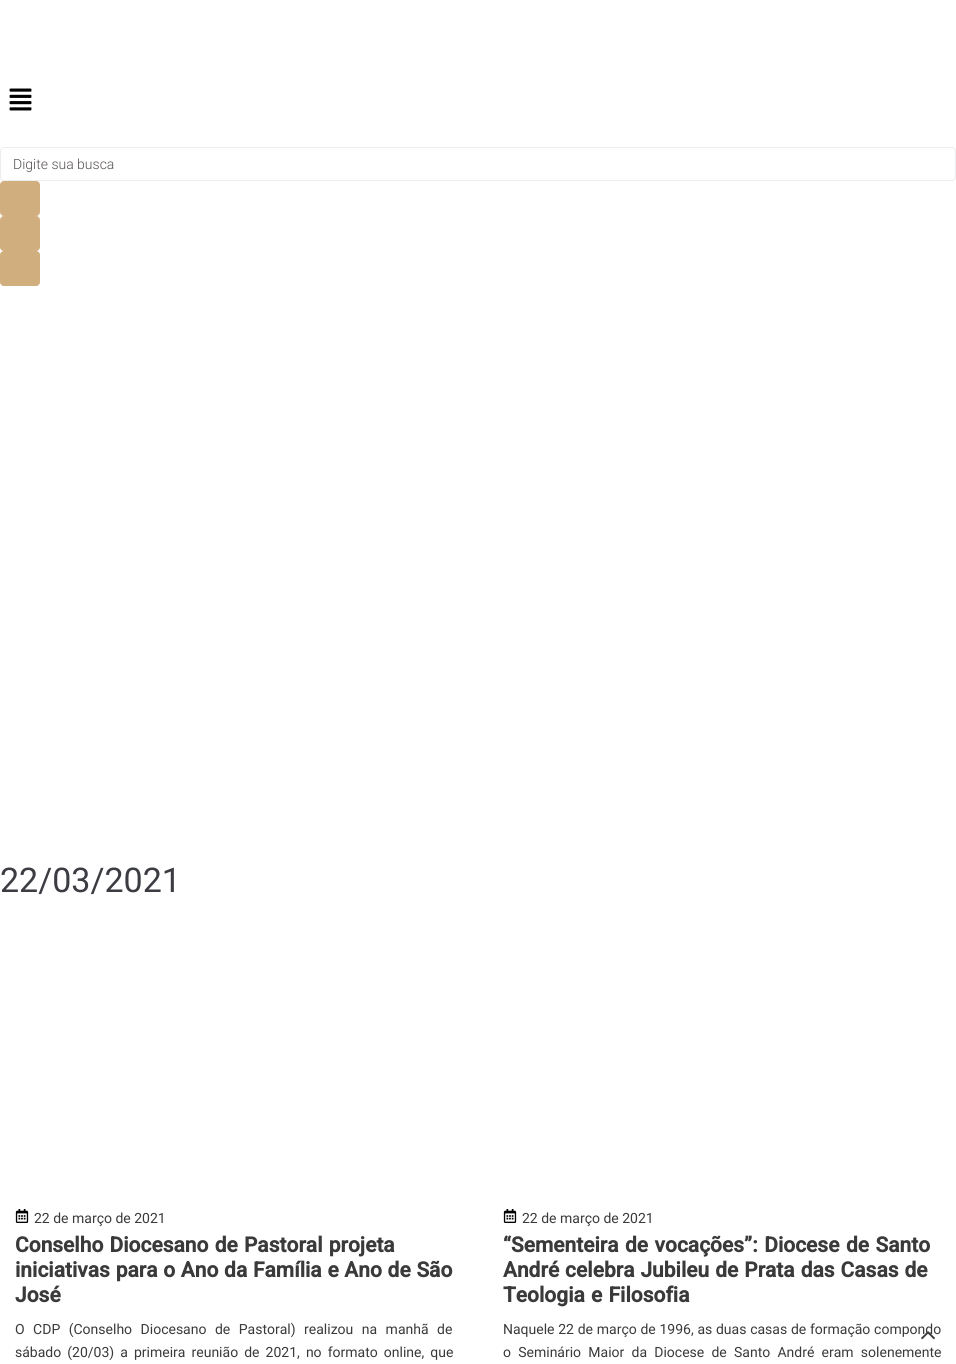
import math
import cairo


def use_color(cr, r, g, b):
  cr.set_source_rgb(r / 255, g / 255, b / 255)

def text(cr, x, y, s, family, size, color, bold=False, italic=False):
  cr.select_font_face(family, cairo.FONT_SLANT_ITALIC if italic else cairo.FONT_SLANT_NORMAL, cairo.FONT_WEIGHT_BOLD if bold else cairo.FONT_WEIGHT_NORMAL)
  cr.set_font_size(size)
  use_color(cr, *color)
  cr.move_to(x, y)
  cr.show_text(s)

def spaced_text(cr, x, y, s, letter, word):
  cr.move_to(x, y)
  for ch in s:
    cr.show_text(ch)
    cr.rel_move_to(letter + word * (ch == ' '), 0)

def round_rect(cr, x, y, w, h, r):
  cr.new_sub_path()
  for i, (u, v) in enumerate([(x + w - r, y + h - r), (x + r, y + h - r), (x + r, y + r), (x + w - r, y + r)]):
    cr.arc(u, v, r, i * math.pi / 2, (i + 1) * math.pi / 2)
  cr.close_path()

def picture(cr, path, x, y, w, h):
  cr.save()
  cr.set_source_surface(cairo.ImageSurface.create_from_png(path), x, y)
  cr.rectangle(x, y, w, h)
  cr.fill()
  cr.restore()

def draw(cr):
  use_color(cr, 255, 255, 255)
  cr.paint()
  picture(cr, "img_01.png", 9, 88, 23, 23)
  round_rect(cr, 0.5, 147.5, 955, 33, 3.5)
  use_color(cr, 235, 236, 237)
  cr.set_line_width(1)
  cr.stroke()
  use_color(cr, 209, 174, 126)
  round_rect(cr, 0, 181, 40, 35, 4)
  cr.fill()
  round_rect(cr, 0, 216, 40, 35, 4)
  cr.fill()
  round_rect(cr, 0, 251, 40, 35, 4)
  cr.fill()
  picture(cr, "img_02.png", 15, 1209, 14, 14)
  picture(cr, "img_02.png", 503, 1209, 14, 14)
  text(cr, 13, 169, "Digite sua busca", "Roboto Light", 14, (87, 81, 81))
  text(cr, 0, 892, "22/03/2021", "Roboto", 34, (59, 61, 66))
  text(cr, 34, 1223, "22 de março de 2021", "Roboto", 14, (58, 58, 58))
  cr.select_font_face("Roboto", cairo.FONT_SLANT_NORMAL, cairo.FONT_WEIGHT_BOLD)
  cr.set_font_size(21)
  spaced_text(cr, 15, 1252, "Conselho Diocesano de Pastoral projeta", 0, 1)
  spaced_text(cr, 15, 1277, "iniciativas para o Ano da Família e Ano de São", 0, 0.5)
  text(cr, 15, 1302, "José", "Roboto", 21, (58, 58, 58), bold=True)
  cr.select_font_face("Roboto")
  cr.set_font_size(14)
  spaced_text(cr, 15, 1334, "O CDP (Conselho Diocesano de Pastoral) realizou na manhã de", 0, 5)
  spaced_text(cr, 15, 1357, "sábado (20/03) a primeira reunião de 2021, no formato online, que", 0, 2.6)
  text(cr, 522, 1223, "22 de março de 2021", "Roboto", 14, (58, 58, 58))
  cr.select_font_face("Roboto", cairo.FONT_SLANT_NORMAL, cairo.FONT_WEIGHT_BOLD)
  cr.set_font_size(21)
  spaced_text(cr, 503, 1252, "“Sementeira de vocações”: Diocese de Santo", 0, 1.25)
  spaced_text(cr, 503, 1277, "André celebra Jubileu de Prata das Casas de", 0, 0.75)
  spaced_text(cr, 503, 1302, "Teologia e Filosofia", 0, 1)
  cr.select_font_face("Roboto")
  cr.set_font_size(14)
  spaced_text(cr, 503, 1334, "Naquele 22 de março de 1996, as duas casas de formação compondo", 0, 0.25)
  spaced_text(cr, 503, 1357, "o Seminário Maior da Diocese de Santo André eram solenemente", 0, 3.75)
  picture(cr, "img_03.png", 921, 1331, 14, 9)


surface = cairo.ImageSurface(cairo.FORMAT_RGB24, 956, 1364)
cr = cairo.Context(surface)
options = cairo.FontOptions()
options.set_hint_metrics(cairo.HINT_METRICS_OFF)
options.set_hint_style(cairo.HINT_STYLE_NONE)
cr.set_font_options(options)
cr.set_miter_limit(4)
draw(cr)
surface.write_to_png("out.png")
